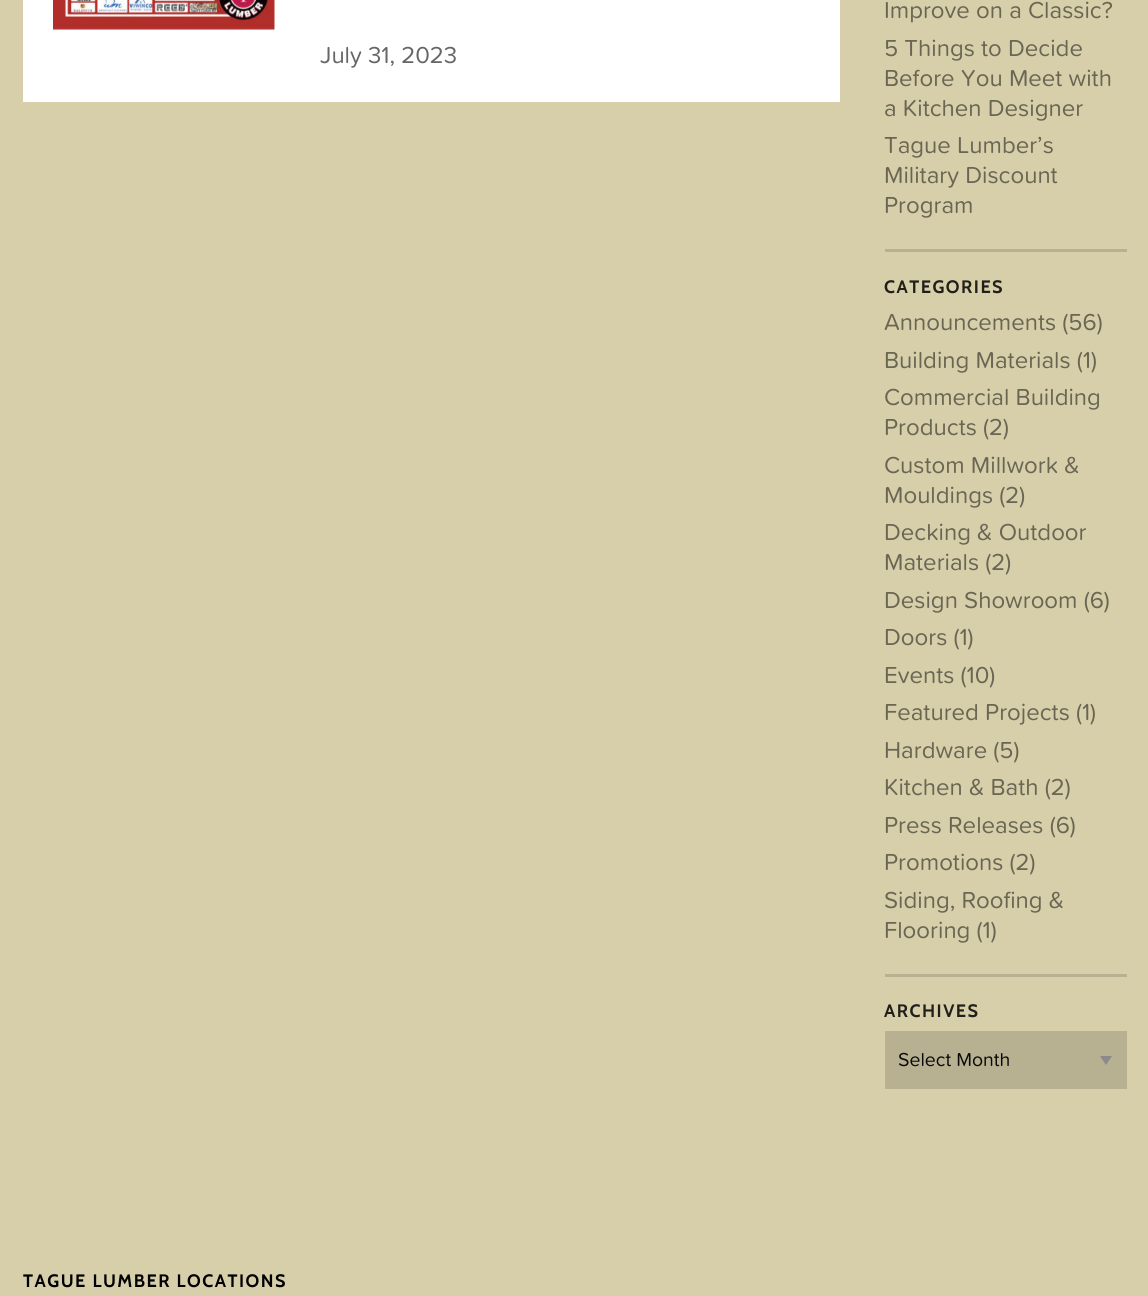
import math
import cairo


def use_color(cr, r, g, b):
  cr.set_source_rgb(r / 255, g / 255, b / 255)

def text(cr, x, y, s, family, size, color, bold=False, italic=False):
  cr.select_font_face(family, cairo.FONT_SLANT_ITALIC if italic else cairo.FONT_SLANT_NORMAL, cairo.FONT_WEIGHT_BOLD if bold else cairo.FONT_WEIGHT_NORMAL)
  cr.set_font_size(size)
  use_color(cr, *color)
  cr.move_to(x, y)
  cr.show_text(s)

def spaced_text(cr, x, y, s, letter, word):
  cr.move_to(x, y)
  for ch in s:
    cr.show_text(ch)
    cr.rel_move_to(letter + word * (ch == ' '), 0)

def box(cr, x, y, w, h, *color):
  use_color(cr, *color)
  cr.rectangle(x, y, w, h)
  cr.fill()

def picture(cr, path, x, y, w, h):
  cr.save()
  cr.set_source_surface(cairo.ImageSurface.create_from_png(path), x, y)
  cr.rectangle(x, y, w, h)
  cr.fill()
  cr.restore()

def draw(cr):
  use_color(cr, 215, 207, 170)
  cr.paint()
  box(cr, 23, 0, 817, 102, 255, 255, 255)
  picture(cr, "img_01.png", 53, 0, 222, 30)
  box(cr, 885, 249, 242, 3, 183, 176, 145)
  box(cr, 885, 974, 242, 3, 183, 176, 145)
  box(cr, 885, 1031, 242, 58, 183, 176, 145)
  use_color(cr, 138, 138, 138)
  cr.new_path()
  cr.move_to(1100, 1056)
  cr.line_to(1112, 1056)
  cr.line_to(1106, 1065)
  cr.close_path()
  cr.fill()
  text(cr, 320, 63, "July 31, 2023", "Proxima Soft", 24, (102, 102, 102))
  text(cr, 884, 18, "Improve on a Classic?", "Proxima Soft", 24, (106, 102, 84))
  text(cr, 884, 56, "5 Things to Decide", "Proxima Soft", 24, (106, 102, 84))
  text(cr, 884, 86, "Before You Meet with", "Proxima Soft", 24, (106, 102, 84))
  text(cr, 884, 116, "a Kitchen Designer", "Proxima Soft", 24, (106, 102, 84))
  text(cr, 884, 153, "Tague Lumber’s", "Proxima Soft", 24, (106, 102, 84))
  text(cr, 884, 183, "Military Discount", "Proxima Soft", 24, (106, 102, 84))
  text(cr, 884, 213, "Program", "Proxima Soft", 24, (106, 102, 84))
  cr.select_font_face("Cabin", cairo.FONT_SLANT_NORMAL, cairo.FONT_WEIGHT_BOLD)
  cr.set_font_size(18)
  use_color(cr, 32, 31, 25)
  spaced_text(cr, 884, 293, "CATEGORIES", 1.5, 0)
  text(cr, 884, 330, "Announcements (56)", "Proxima Soft", 24, (106, 102, 84))
  text(cr, 884, 368, "Building Materials (1)", "Proxima Soft", 24, (106, 102, 84))
  text(cr, 884, 405, "Commercial Building", "Proxima Soft", 24, (106, 102, 84))
  text(cr, 884, 435, "Products (2)", "Proxima Soft", 24, (106, 102, 84))
  text(cr, 884, 473, "Custom Millwork &", "Proxima Soft", 24, (106, 102, 84))
  text(cr, 884, 503, "Mouldings (2)", "Proxima Soft", 24, (106, 102, 84))
  text(cr, 884, 540, "Decking & Outdoor", "Proxima Soft", 24, (106, 102, 84))
  text(cr, 884, 570, "Materials (2)", "Proxima Soft", 24, (106, 102, 84))
  text(cr, 884, 608, "Design Showroom (6)", "Proxima Soft", 24, (106, 102, 84))
  text(cr, 884, 645, "Doors (1)", "Proxima Soft", 24, (106, 102, 84))
  text(cr, 884, 683, "Events (10)", "Proxima Soft", 24, (106, 102, 84))
  text(cr, 884, 720, "Featured Projects (1)", "Proxima Soft", 24, (106, 102, 84))
  text(cr, 884, 758, "Hardware (5)", "Proxima Soft", 24, (106, 102, 84))
  text(cr, 884, 795, "Kitchen & Bath (2)", "Proxima Soft", 24, (106, 102, 84))
  text(cr, 884, 833, "Press Releases (6)", "Proxima Soft", 24, (106, 102, 84))
  text(cr, 884, 870, "Promotions (2)", "Proxima Soft", 24, (106, 102, 84))
  text(cr, 884, 908, "Siding, Roofing &", "Proxima Soft", 24, (106, 102, 84))
  text(cr, 884, 938, "Flooring (1)", "Proxima Soft", 24, (106, 102, 84))
  cr.select_font_face("Cabin", cairo.FONT_SLANT_NORMAL, cairo.FONT_WEIGHT_BOLD)
  cr.set_font_size(18)
  use_color(cr, 32, 31, 25)
  spaced_text(cr, 884, 1017, "ARCHIVES", 1.5, 0)
  cr.save()
  cr.rectangle(899, 1046, 190, 28)
  cr.clip()
  text(cr, 898, 1066, "Select Month", "Proxima Soft", 19.5, (10, 10, 10))
  cr.restore()
  use_color(cr, 0, 0, 0)
  spaced_text(cr, 23, 1287, "TAGUE LUMBER LOCATIONS", 1.5, 0)


surface = cairo.ImageSurface(cairo.FORMAT_RGB24, 1148, 1296)
cr = cairo.Context(surface)
options = cairo.FontOptions()
options.set_hint_metrics(cairo.HINT_METRICS_OFF)
options.set_hint_style(cairo.HINT_STYLE_NONE)
cr.set_font_options(options)
cr.set_miter_limit(4)
draw(cr)
surface.write_to_png("out.png")
